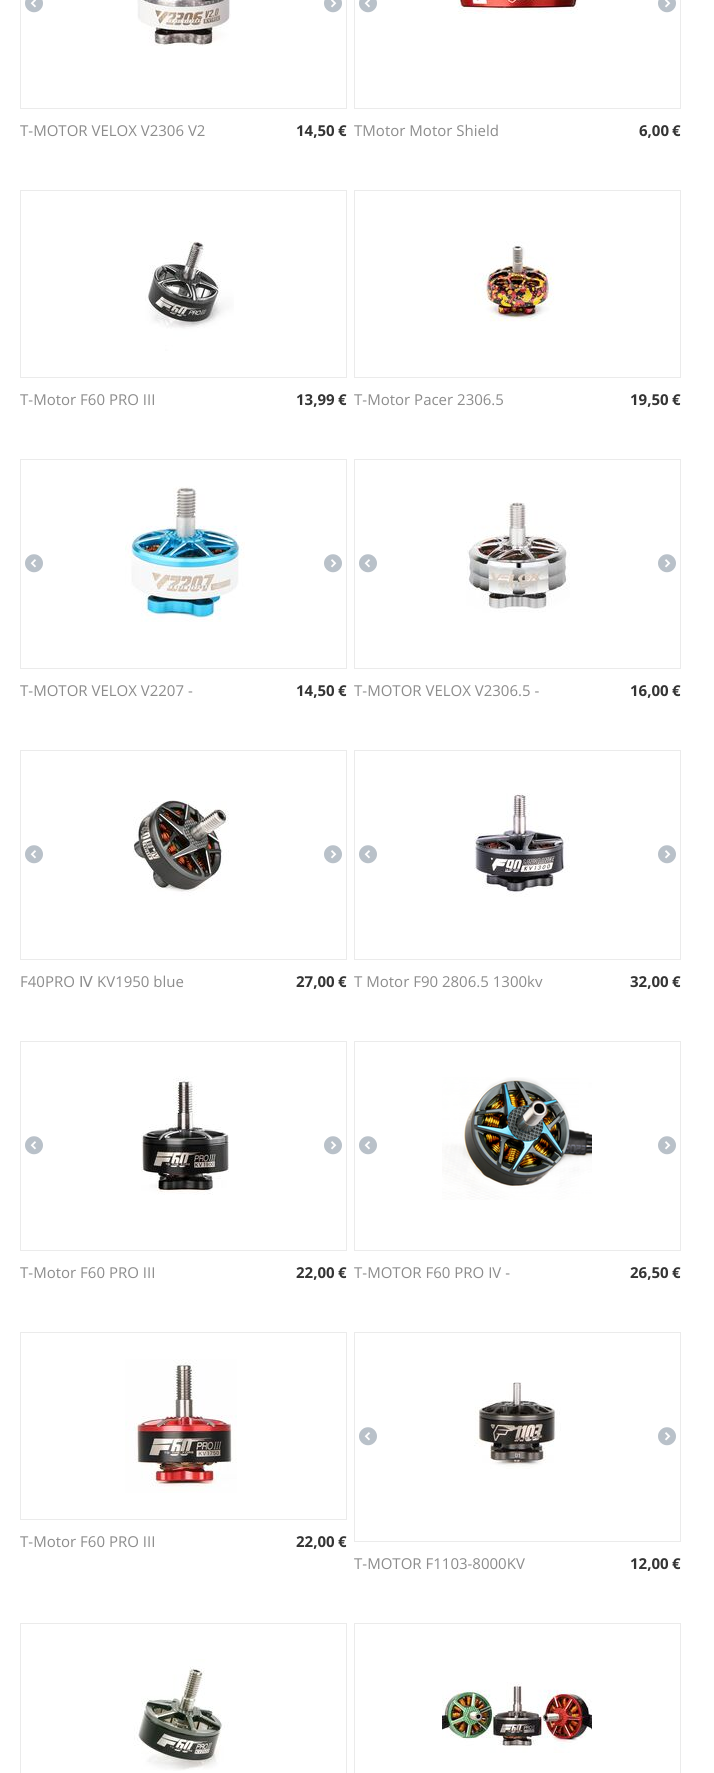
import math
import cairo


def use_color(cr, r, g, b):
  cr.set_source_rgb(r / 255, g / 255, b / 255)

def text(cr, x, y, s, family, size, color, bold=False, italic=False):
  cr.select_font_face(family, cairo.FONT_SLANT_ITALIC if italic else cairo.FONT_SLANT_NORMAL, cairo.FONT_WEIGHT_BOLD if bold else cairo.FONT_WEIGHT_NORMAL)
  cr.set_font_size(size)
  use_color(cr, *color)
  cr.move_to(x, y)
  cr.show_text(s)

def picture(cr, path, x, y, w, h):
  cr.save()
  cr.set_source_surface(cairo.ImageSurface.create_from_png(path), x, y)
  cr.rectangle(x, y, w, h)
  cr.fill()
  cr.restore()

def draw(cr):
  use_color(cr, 255, 255, 255)
  cr.paint()
  cr.rectangle(20.5, -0.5, 326, 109)
  use_color(cr, 235, 235, 235)
  cr.set_line_width(1)
  cr.stroke()
  picture(cr, "img_01.png", 25, 0, 18, 13)
  picture(cr, "img_02.png", 324, 0, 18, 13)
  picture(cr, "img_03.png", 137, 0, 94, 46)
  cr.rectangle(354.5, -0.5, 326, 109)
  cr.stroke()
  picture(cr, "img_01.png", 359, 0, 18, 13)
  picture(cr, "img_02.png", 658, 0, 18, 13)
  picture(cr, "img_04.png", 457, 0, 121, 14)
  cr.rectangle(20.5, 190.5, 326, 187)
  cr.stroke()
  picture(cr, "img_05.png", 145, 241, 89, 110)
  cr.rectangle(354.5, 190.5, 326, 187)
  cr.stroke()
  picture(cr, "img_06.png", 474, 241, 81, 81)
  cr.rectangle(20.5, 459.5, 326, 209)
  cr.stroke()
  picture(cr, "img_07.png", 125, 486, 120, 136)
  picture(cr, "img_08.png", 25, 554, 18, 19)
  picture(cr, "img_09.png", 324, 554, 18, 19)
  cr.rectangle(354.5, 459.5, 326, 209)
  cr.stroke()
  picture(cr, "img_10.png", 466, 502, 104, 111)
  picture(cr, "img_08.png", 359, 554, 18, 19)
  picture(cr, "img_09.png", 658, 554, 18, 19)
  cr.rectangle(20.5, 750.5, 326, 209)
  cr.stroke()
  picture(cr, "img_11.png", 133, 800, 96, 96)
  picture(cr, "img_08.png", 25, 845, 18, 19)
  picture(cr, "img_09.png", 324, 845, 18, 19)
  cr.rectangle(354.5, 750.5, 326, 209)
  cr.stroke()
  picture(cr, "img_12.png", 474, 793, 96, 104)
  picture(cr, "img_08.png", 359, 845, 18, 19)
  picture(cr, "img_09.png", 658, 845, 18, 19)
  cr.rectangle(20.5, 1041.5, 326, 209)
  cr.stroke()
  picture(cr, "img_13.png", 141, 1076, 88, 119)
  picture(cr, "img_08.png", 25, 1136, 18, 19)
  picture(cr, "img_09.png", 324, 1136, 18, 19)
  cr.rectangle(354.5, 1041.5, 326, 209)
  cr.stroke()
  picture(cr, "img_14.png", 442, 1077, 150, 123)
  picture(cr, "img_08.png", 359, 1136, 18, 19)
  picture(cr, "img_09.png", 658, 1136, 18, 19)
  cr.rectangle(20.5, 1332.5, 326, 187)
  cr.stroke()
  picture(cr, "img_15.png", 125, 1359, 112, 134)
  cr.rectangle(354.5, 1332.5, 326, 209)
  cr.stroke()
  picture(cr, "img_16.png", 474, 1382, 87, 87)
  picture(cr, "img_08.png", 359, 1427, 18, 19)
  picture(cr, "img_09.png", 658, 1427, 18, 19)
  cr.rectangle(20.5, 1623.5, 326, 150)
  cr.stroke()
  picture(cr, "img_17.png", 133, 1659, 96, 112)
  cr.rectangle(354.5, 1623.5, 326, 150)
  cr.stroke()
  picture(cr, "img_18.png", 442, 1682, 150, 71)
  text(cr, 20, 136, "T-MOTOR VELOX V2306 V2", "Open Sans", 15, (140, 140, 140))
  text(cr, 296, 136, "14,50", "Open Sans", 15, (52, 52, 52), bold=True)
  text(cr, 338, 136, "€", "Open Sans", 15, (52, 52, 52), bold=True)
  text(cr, 354, 136, "TMotor Motor Shield", "Open Sans", 15, (140, 140, 140))
  text(cr, 639, 136, "6,00", "Open Sans", 15, (52, 52, 52), bold=True)
  text(cr, 672, 136, "€", "Open Sans", 15, (52, 52, 52), bold=True)
  text(cr, 20, 405, "T-Motor F60 PRO III", "Open Sans", 15, (140, 140, 140))
  text(cr, 296, 405, "13,99", "Open Sans", 15, (52, 52, 52), bold=True)
  text(cr, 338, 405, "€", "Open Sans", 15, (52, 52, 52), bold=True)
  text(cr, 354, 405, "T-Motor Pacer 2306.5", "Open Sans", 15, (140, 140, 140))
  text(cr, 630, 405, "19,50", "Open Sans", 15, (52, 52, 52), bold=True)
  text(cr, 672, 405, "€", "Open Sans", 15, (52, 52, 52), bold=True)
  text(cr, 20, 696, "T-MOTOR VELOX V2207 -", "Open Sans", 15, (140, 140, 140))
  text(cr, 296, 696, "14,50", "Open Sans", 15, (52, 52, 52), bold=True)
  text(cr, 338, 696, "€", "Open Sans", 15, (52, 52, 52), bold=True)
  text(cr, 354, 696, "T-MOTOR VELOX V2306.5 -", "Open Sans", 15, (140, 140, 140))
  text(cr, 630, 696, "16,00", "Open Sans", 15, (52, 52, 52), bold=True)
  text(cr, 672, 696, "€", "Open Sans", 15, (52, 52, 52), bold=True)
  text(cr, 20, 987, "F40PRO", "Open Sans", 15, (140, 140, 140))
  text(cr, 79, 987, "Ⅳ", "DejaVu Sans", 15, (140, 140, 140))
  text(cr, 97, 987, "KV1950 blue", "Open Sans", 15, (140, 140, 140))
  text(cr, 296, 987, "27,00", "Open Sans", 15, (52, 52, 52), bold=True)
  text(cr, 338, 987, "€", "Open Sans", 15, (52, 52, 52), bold=True)
  text(cr, 354, 987, "T Motor F90 2806.5 1300kv", "Open Sans", 15, (140, 140, 140))
  text(cr, 630, 987, "32,00", "Open Sans", 15, (52, 52, 52), bold=True)
  text(cr, 672, 987, "€", "Open Sans", 15, (52, 52, 52), bold=True)
  text(cr, 20, 1278, "T-Motor F60 PRO III", "Open Sans", 15, (140, 140, 140))
  text(cr, 296, 1278, "22,00", "Open Sans", 15, (52, 52, 52), bold=True)
  text(cr, 338, 1278, "€", "Open Sans", 15, (52, 52, 52), bold=True)
  text(cr, 354, 1278, "T-MOTOR F60 PRO IV -", "Open Sans", 15, (140, 140, 140))
  text(cr, 630, 1278, "26,50", "Open Sans", 15, (52, 52, 52), bold=True)
  text(cr, 672, 1278, "€", "Open Sans", 15, (52, 52, 52), bold=True)
  text(cr, 20, 1547, "T-Motor F60 PRO III", "Open Sans", 15, (140, 140, 140))
  text(cr, 296, 1547, "22,00", "Open Sans", 15, (52, 52, 52), bold=True)
  text(cr, 338, 1547, "€", "Open Sans", 15, (52, 52, 52), bold=True)
  text(cr, 354, 1569, "T-MOTOR F1103-8000KV", "Open Sans", 15, (140, 140, 140))
  text(cr, 630, 1569, "12,00", "Open Sans", 15, (52, 52, 52), bold=True)
  text(cr, 672, 1569, "€", "Open Sans", 15, (52, 52, 52), bold=True)


surface = cairo.ImageSurface(cairo.FORMAT_RGB24, 714, 1773)
cr = cairo.Context(surface)
options = cairo.FontOptions()
options.set_hint_metrics(cairo.HINT_METRICS_OFF)
options.set_hint_style(cairo.HINT_STYLE_NONE)
cr.set_font_options(options)
cr.set_miter_limit(4)
draw(cr)
surface.write_to_png("out.png")
